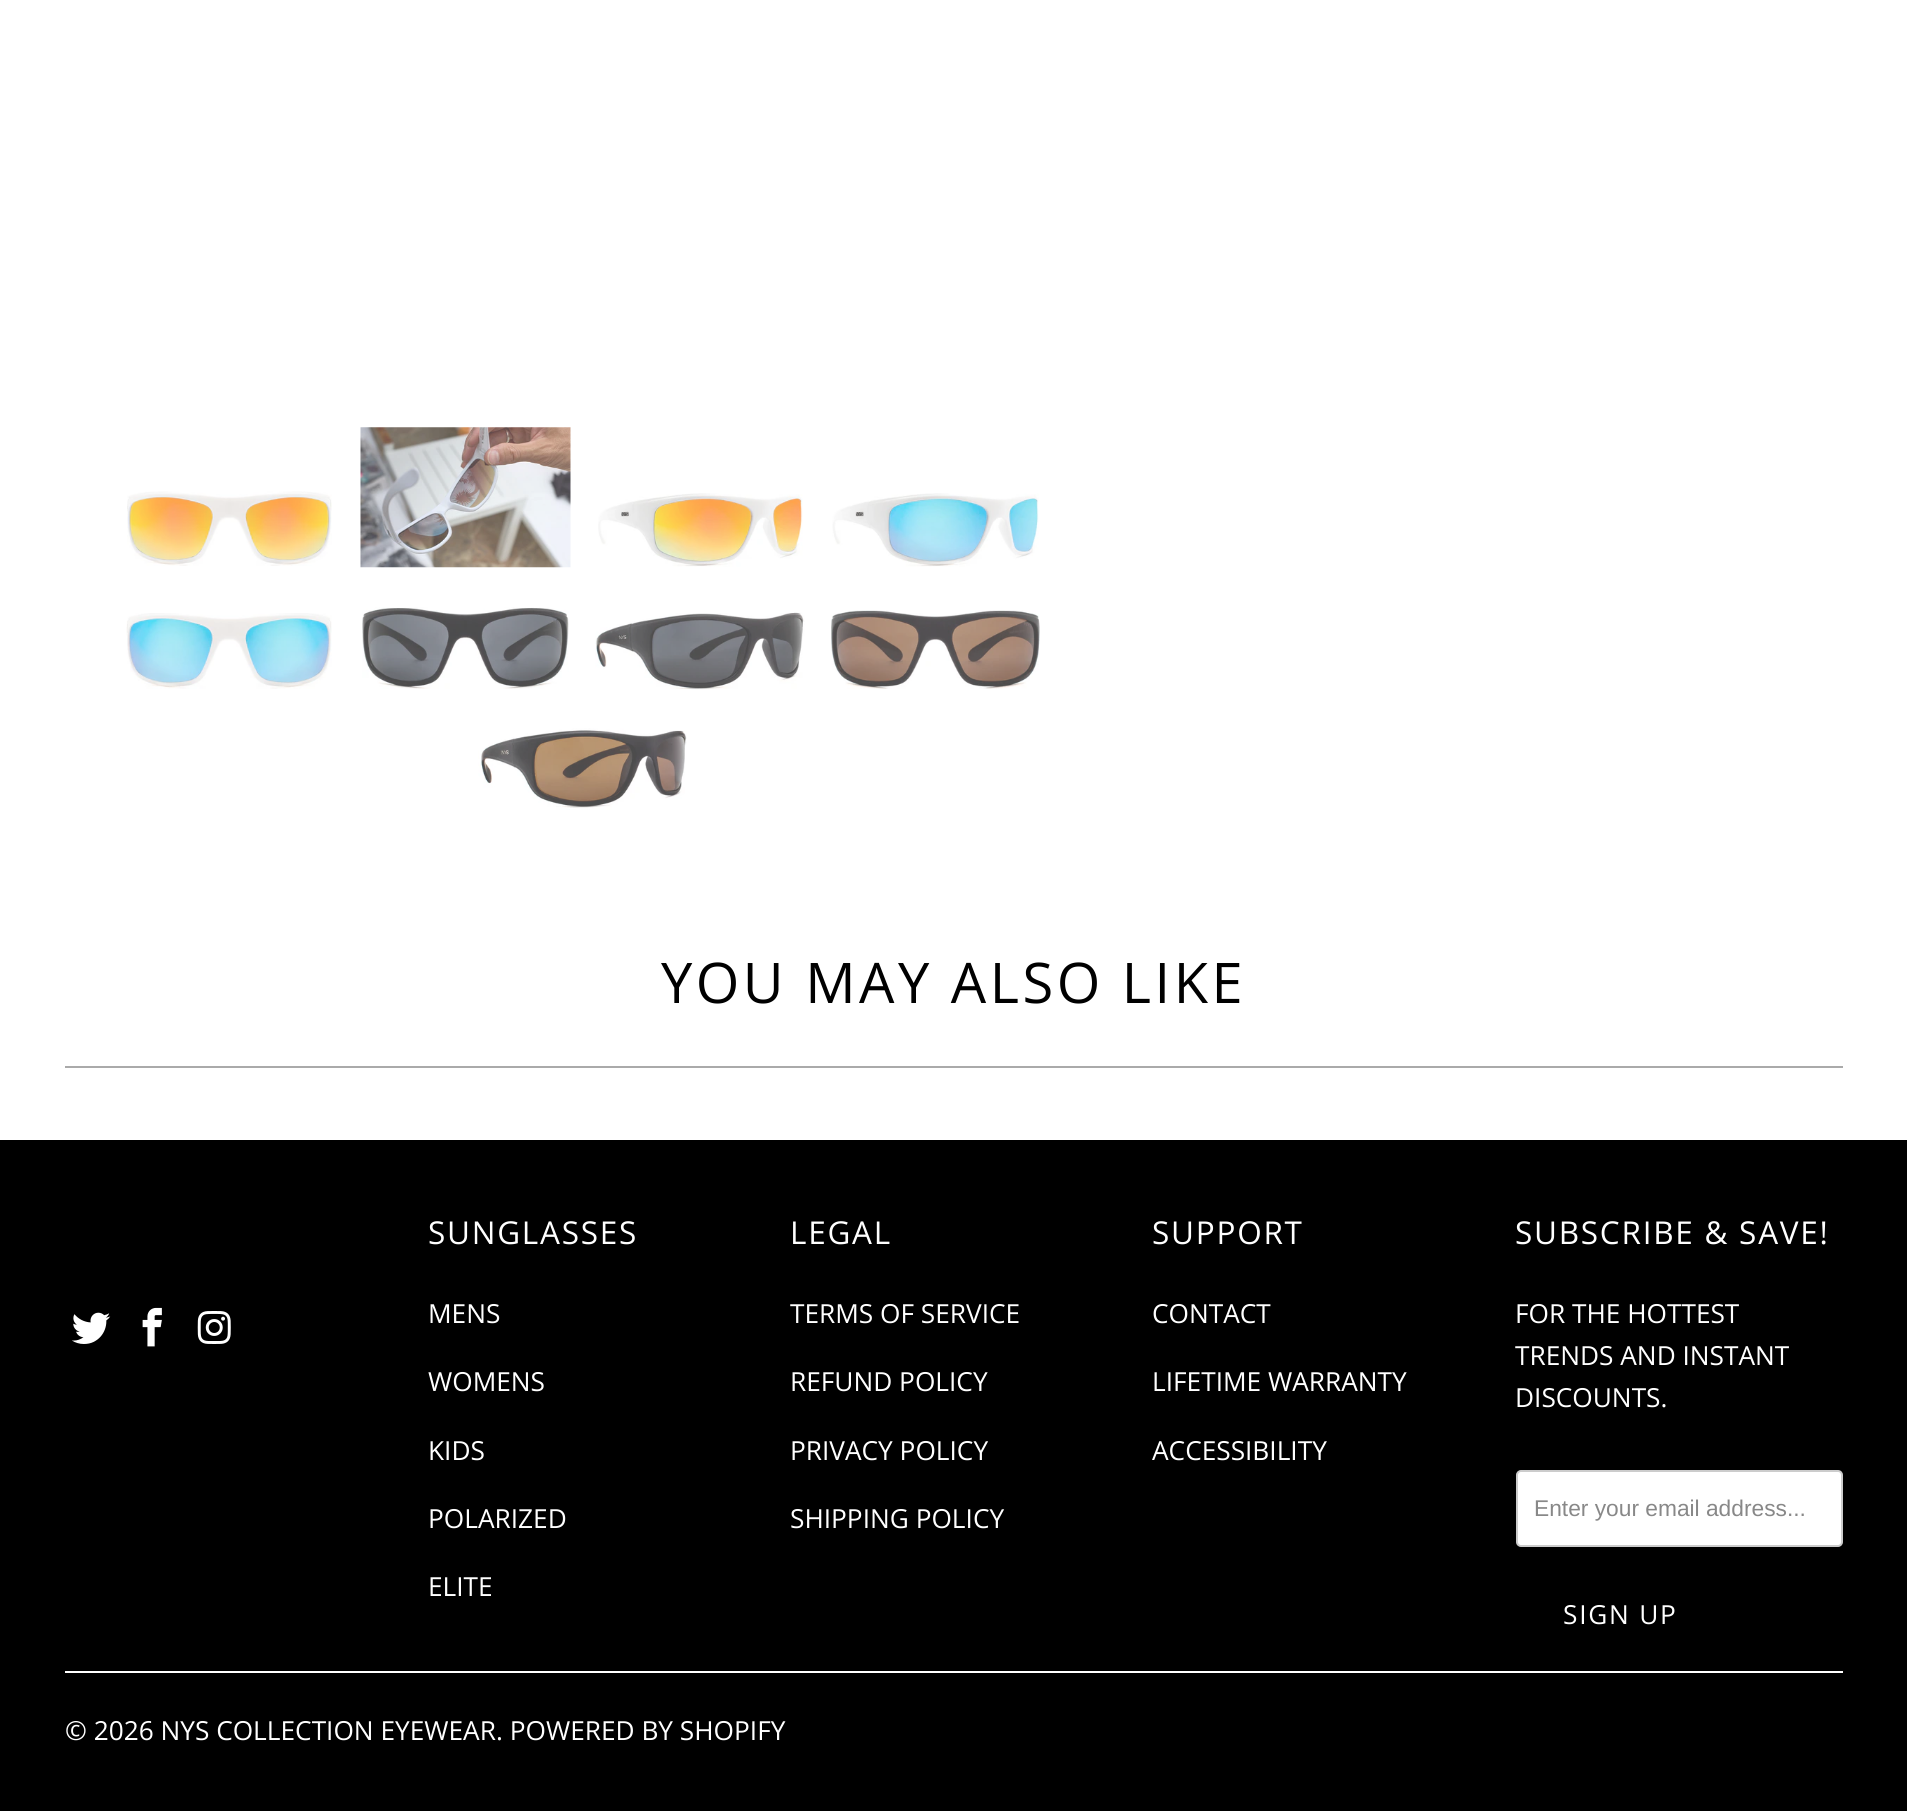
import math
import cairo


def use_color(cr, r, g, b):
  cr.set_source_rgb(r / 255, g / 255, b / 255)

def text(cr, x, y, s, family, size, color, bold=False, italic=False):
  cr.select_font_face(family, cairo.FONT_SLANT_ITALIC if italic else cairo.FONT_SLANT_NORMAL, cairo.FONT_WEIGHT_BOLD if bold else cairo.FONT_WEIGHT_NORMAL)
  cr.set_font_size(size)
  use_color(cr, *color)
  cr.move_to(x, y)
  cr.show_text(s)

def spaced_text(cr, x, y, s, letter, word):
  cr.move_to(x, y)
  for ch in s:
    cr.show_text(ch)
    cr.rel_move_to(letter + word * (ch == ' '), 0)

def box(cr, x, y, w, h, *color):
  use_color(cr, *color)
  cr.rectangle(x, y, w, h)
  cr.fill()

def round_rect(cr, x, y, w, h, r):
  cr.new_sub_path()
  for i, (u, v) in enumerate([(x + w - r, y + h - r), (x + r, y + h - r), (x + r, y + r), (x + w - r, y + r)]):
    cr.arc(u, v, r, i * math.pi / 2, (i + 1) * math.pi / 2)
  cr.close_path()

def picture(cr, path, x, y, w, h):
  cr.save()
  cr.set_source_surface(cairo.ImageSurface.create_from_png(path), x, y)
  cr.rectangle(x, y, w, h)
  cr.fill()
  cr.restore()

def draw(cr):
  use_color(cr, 255, 255, 255)
  cr.paint()
  picture(cr, "img_01.png", 127, 491, 205, 75)
  picture(cr, "img_02.png", 360, 427, 211, 141)
  picture(cr, "img_03.png", 598, 493, 205, 74)
  picture(cr, "img_04.png", 832, 493, 207, 74)
  picture(cr, "img_05.png", 126, 613, 206, 76)
  picture(cr, "img_06.png", 362, 607, 207, 82)
  picture(cr, "img_07.png", 595, 612, 210, 78)
  picture(cr, "img_08.png", 831, 610, 209, 79)
  picture(cr, "img_09.png", 478, 728, 209, 82)
  box(cr, 65, 1066, 1778, 2, 170, 170, 170)
  box(cr, 0, 1140, 1907, 671, 0, 0, 0)
  picture(cr, "img_10.png", 72, 1312, 39, 32)
  picture(cr, "img_11.png", 142, 1307, 20, 40)
  picture(cr, "img_12.png", 197, 1311, 34, 33)
  use_color(cr, 255, 255, 255)
  round_rect(cr, 1517, 1471, 325, 75, 4)
  cr.fill_preserve()
  use_color(cr, 204, 204, 204)
  cr.stroke()
  box(cr, 65, 1671, 1778, 2, 255, 255, 255)
  cr.select_font_face("Open Sans")
  cr.set_font_size(56)
  use_color(cr, 0, 0, 0)
  spaced_text(cr, 661, 1003, "YOU MAY ALSO LIKE", 3.5, 0)
  cr.set_font_size(31.5)
  use_color(cr, 255, 255, 255)
  spaced_text(cr, 428, 1244, "SUNGLASSES", 1.75, 0)
  text(cr, 428, 1323, "MENS", "Open Sans", 26.25, (255, 255, 255))
  text(cr, 428, 1391, "WOMENS", "Open Sans", 26.25, (255, 255, 255))
  text(cr, 428, 1460, "KIDS", "Open Sans", 26.25, (255, 255, 255))
  text(cr, 428, 1528, "POLARIZED", "Open Sans", 26.25, (255, 255, 255))
  text(cr, 428, 1596, "ELITE", "Open Sans", 26.25, (255, 255, 255))
  cr.set_font_size(31.5)
  spaced_text(cr, 790, 1244, "LEGAL", 1.75, 0)
  text(cr, 790, 1323, "TERMS OF SERVICE", "Open Sans", 26.25, (255, 255, 255))
  text(cr, 790, 1391, "REFUND POLICY", "Open Sans", 26.25, (255, 255, 255))
  text(cr, 790, 1460, "PRIVACY POLICY", "Open Sans", 26.25, (255, 255, 255))
  text(cr, 790, 1528, "SHIPPING POLICY", "Open Sans", 26.25, (255, 255, 255))
  cr.set_font_size(31.5)
  spaced_text(cr, 1152, 1244, "SUPPORT", 1.75, 0)
  text(cr, 1152, 1323, "CONTACT", "Open Sans", 26.25, (255, 255, 255))
  text(cr, 1152, 1391, "LIFETIME WARRANTY", "Open Sans", 26.25, (255, 255, 255))
  text(cr, 1152, 1460, "ACCESSIBILITY", "Open Sans", 26.25, (255, 255, 255))
  cr.set_font_size(31.5)
  spaced_text(cr, 1515, 1244, "SUBSCRIBE & SAVE!", 1.75, 0)
  text(cr, 1515, 1323, "FOR THE HOTTEST", "Open Sans", 26.25, (255, 255, 255))
  text(cr, 1515, 1365, "TRENDS AND INSTANT", "Open Sans", 26.25, (255, 255, 255))
  text(cr, 1515, 1407, "DISCOUNTS.", "Open Sans", 26.25, (255, 255, 255))
  text(cr, 1534, 1516, "Enter your email address...", "Liberation Sans", 22.75, (136, 136, 136))
  cr.select_font_face("Open Sans")
  cr.set_font_size(26.25)
  use_color(cr, 255, 255, 255)
  spaced_text(cr, 1563, 1624, "SIGN UP", 1.75, 0)
  text(cr, 65, 1740, "© 2026 NYS COLLECTION EYEWEAR", "Open Sans", 26.25, (255, 255, 255))
  text(cr, 496, 1740, ". POWERED BY SHOPIFY", "Open Sans", 26.25, (255, 255, 255))


surface = cairo.ImageSurface(cairo.FORMAT_RGB24, 1907, 1811)
cr = cairo.Context(surface)
options = cairo.FontOptions()
options.set_hint_metrics(cairo.HINT_METRICS_OFF)
options.set_hint_style(cairo.HINT_STYLE_NONE)
cr.set_font_options(options)
cr.set_miter_limit(4)
draw(cr)
surface.write_to_png("out.png")
